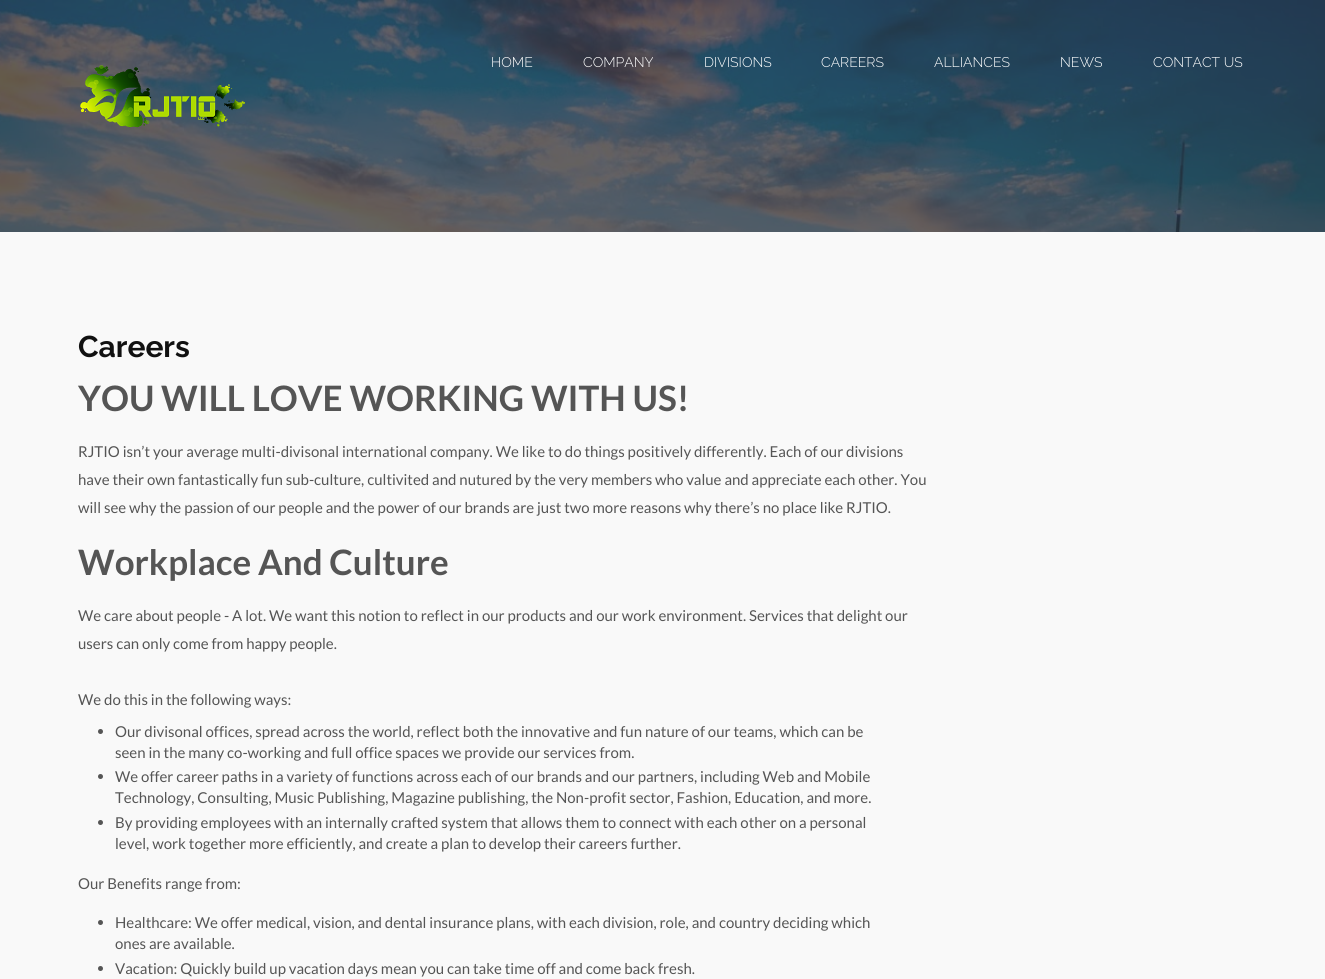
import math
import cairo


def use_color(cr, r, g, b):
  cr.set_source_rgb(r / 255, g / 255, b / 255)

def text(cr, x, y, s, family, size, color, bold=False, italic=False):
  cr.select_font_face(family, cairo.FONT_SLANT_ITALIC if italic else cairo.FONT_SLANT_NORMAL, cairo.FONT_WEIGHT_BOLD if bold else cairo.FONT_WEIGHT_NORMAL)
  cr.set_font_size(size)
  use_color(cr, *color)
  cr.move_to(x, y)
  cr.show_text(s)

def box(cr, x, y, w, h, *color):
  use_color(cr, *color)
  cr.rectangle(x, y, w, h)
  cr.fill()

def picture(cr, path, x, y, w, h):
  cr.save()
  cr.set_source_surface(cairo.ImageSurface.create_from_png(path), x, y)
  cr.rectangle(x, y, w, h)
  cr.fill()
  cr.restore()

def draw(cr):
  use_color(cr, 255, 255, 255)
  cr.paint()
  picture(cr, "img_01.png", 0, 0, 1325, 232)
  picture(cr, "img_02.png", 80, 65, 165, 63)
  box(cr, 0, 232, 1325, 747, 249, 249, 249)
  use_color(cr, 85, 85, 85)
  cr.arc(100.5, 731.5, 2.5, 0, 2 * math.pi)
  cr.fill()
  cr.arc(100.5, 776.5, 2.5, 0, 2 * math.pi)
  cr.fill()
  cr.arc(100.5, 822.5, 2.5, 0, 2 * math.pi)
  cr.fill()
  cr.arc(100.5, 922.5, 2.5, 0, 2 * math.pi)
  cr.fill()
  cr.arc(100.5, 968.5, 2.5, 0, 2 * math.pi)
  cr.fill()
  text(cr, 491, 67, "HOME", "Raleway Light", 14, (255, 255, 255))
  text(cr, 583, 67, "COMPANY", "Raleway Light", 14, (255, 255, 255))
  text(cr, 704, 67, "DIVISIONS", "Raleway Light", 14, (255, 255, 255))
  text(cr, 821, 67, "CAREERS", "Raleway Light", 14, (255, 255, 255))
  text(cr, 934, 67, "ALLIANCES", "Raleway Light", 14, (255, 255, 255))
  text(cr, 1060, 67, "NEWS", "Raleway Light", 14, (255, 255, 255))
  text(cr, 1153, 67, "CONTACT US", "Raleway Light", 14, (255, 255, 255))
  text(cr, 78, 357, "Careers", "Raleway", 30, (17, 17, 17), bold=True)
  text(cr, 78, 411, "YOU WILL LOVE WORKING WITH US!", "Lato", 35, (85, 85, 85), bold=True)
  text(cr, 78, 457, "RJTIO isn’t your average multi-divisonal international company. We like to do things positively differently. Each of our divisions", "Lato", 15, (85, 85, 85))
  text(cr, 78, 485, "have their own fantastically fun sub-culture, cultivited and nutured by the very members who value and appreciate each other. You", "Lato", 15, (85, 85, 85))
  text(cr, 78, 513, "will see why the passion of our people and the power of our brands are just two more reasons why there’s no place like RJTIO.", "Lato", 15, (85, 85, 85))
  text(cr, 78, 575, "Workplace And Culture", "Lato", 35, (85, 85, 85), bold=True)
  text(cr, 78, 621, "We care about people - A lot. We want this notion to reflect in our products and our work environment. Services that delight our", "Lato", 15, (85, 85, 85))
  text(cr, 78, 649, "users can only come from happy people.", "Lato", 15, (85, 85, 85))
  text(cr, 78, 705, "We do this in the following ways:", "Lato", 15, (85, 85, 85))
  text(cr, 115, 737, "Our divisonal offices, spread across the world, reflect both the innovative and fun nature of our teams, which can be", "Lato", 15, (85, 85, 85))
  text(cr, 115, 758, "seen in the many co-working and full office spaces we provide our services from.", "Lato", 15, (85, 85, 85))
  text(cr, 115, 782, "We offer career paths in a variety of functions across each of our brands and our partners, including Web and Mobile", "Lato", 15, (85, 85, 85))
  text(cr, 115, 803, "Technology, Consulting, Music Publishing, Magazine publishing, the Non-profit sector, Fashion, Education, and more.", "Lato", 15, (85, 85, 85))
  text(cr, 115, 828, "By providing employees with an internally crafted system that allows them to connect with each other on a personal", "Lato", 15, (85, 85, 85))
  text(cr, 115, 849, "level, work together more efficiently, and create a plan to develop their careers further.", "Lato", 15, (85, 85, 85))
  text(cr, 78, 889, "Our Benefits range from:", "Lato", 15, (85, 85, 85))
  text(cr, 115, 928, "Healthcare: We offer medical, vision, and dental insurance plans, with each division, role, and country deciding which", "Lato", 15, (85, 85, 85))
  text(cr, 115, 949, "ones are available.", "Lato", 15, (85, 85, 85))
  text(cr, 115, 974, "Vacation: Quickly build up vacation days mean you can take time off and come back fresh.", "Lato", 15, (85, 85, 85))


surface = cairo.ImageSurface(cairo.FORMAT_RGB24, 1325, 979)
cr = cairo.Context(surface)
options = cairo.FontOptions()
options.set_hint_metrics(cairo.HINT_METRICS_OFF)
options.set_hint_style(cairo.HINT_STYLE_NONE)
cr.set_font_options(options)
cr.set_miter_limit(4)
draw(cr)
surface.write_to_png("out.png")
